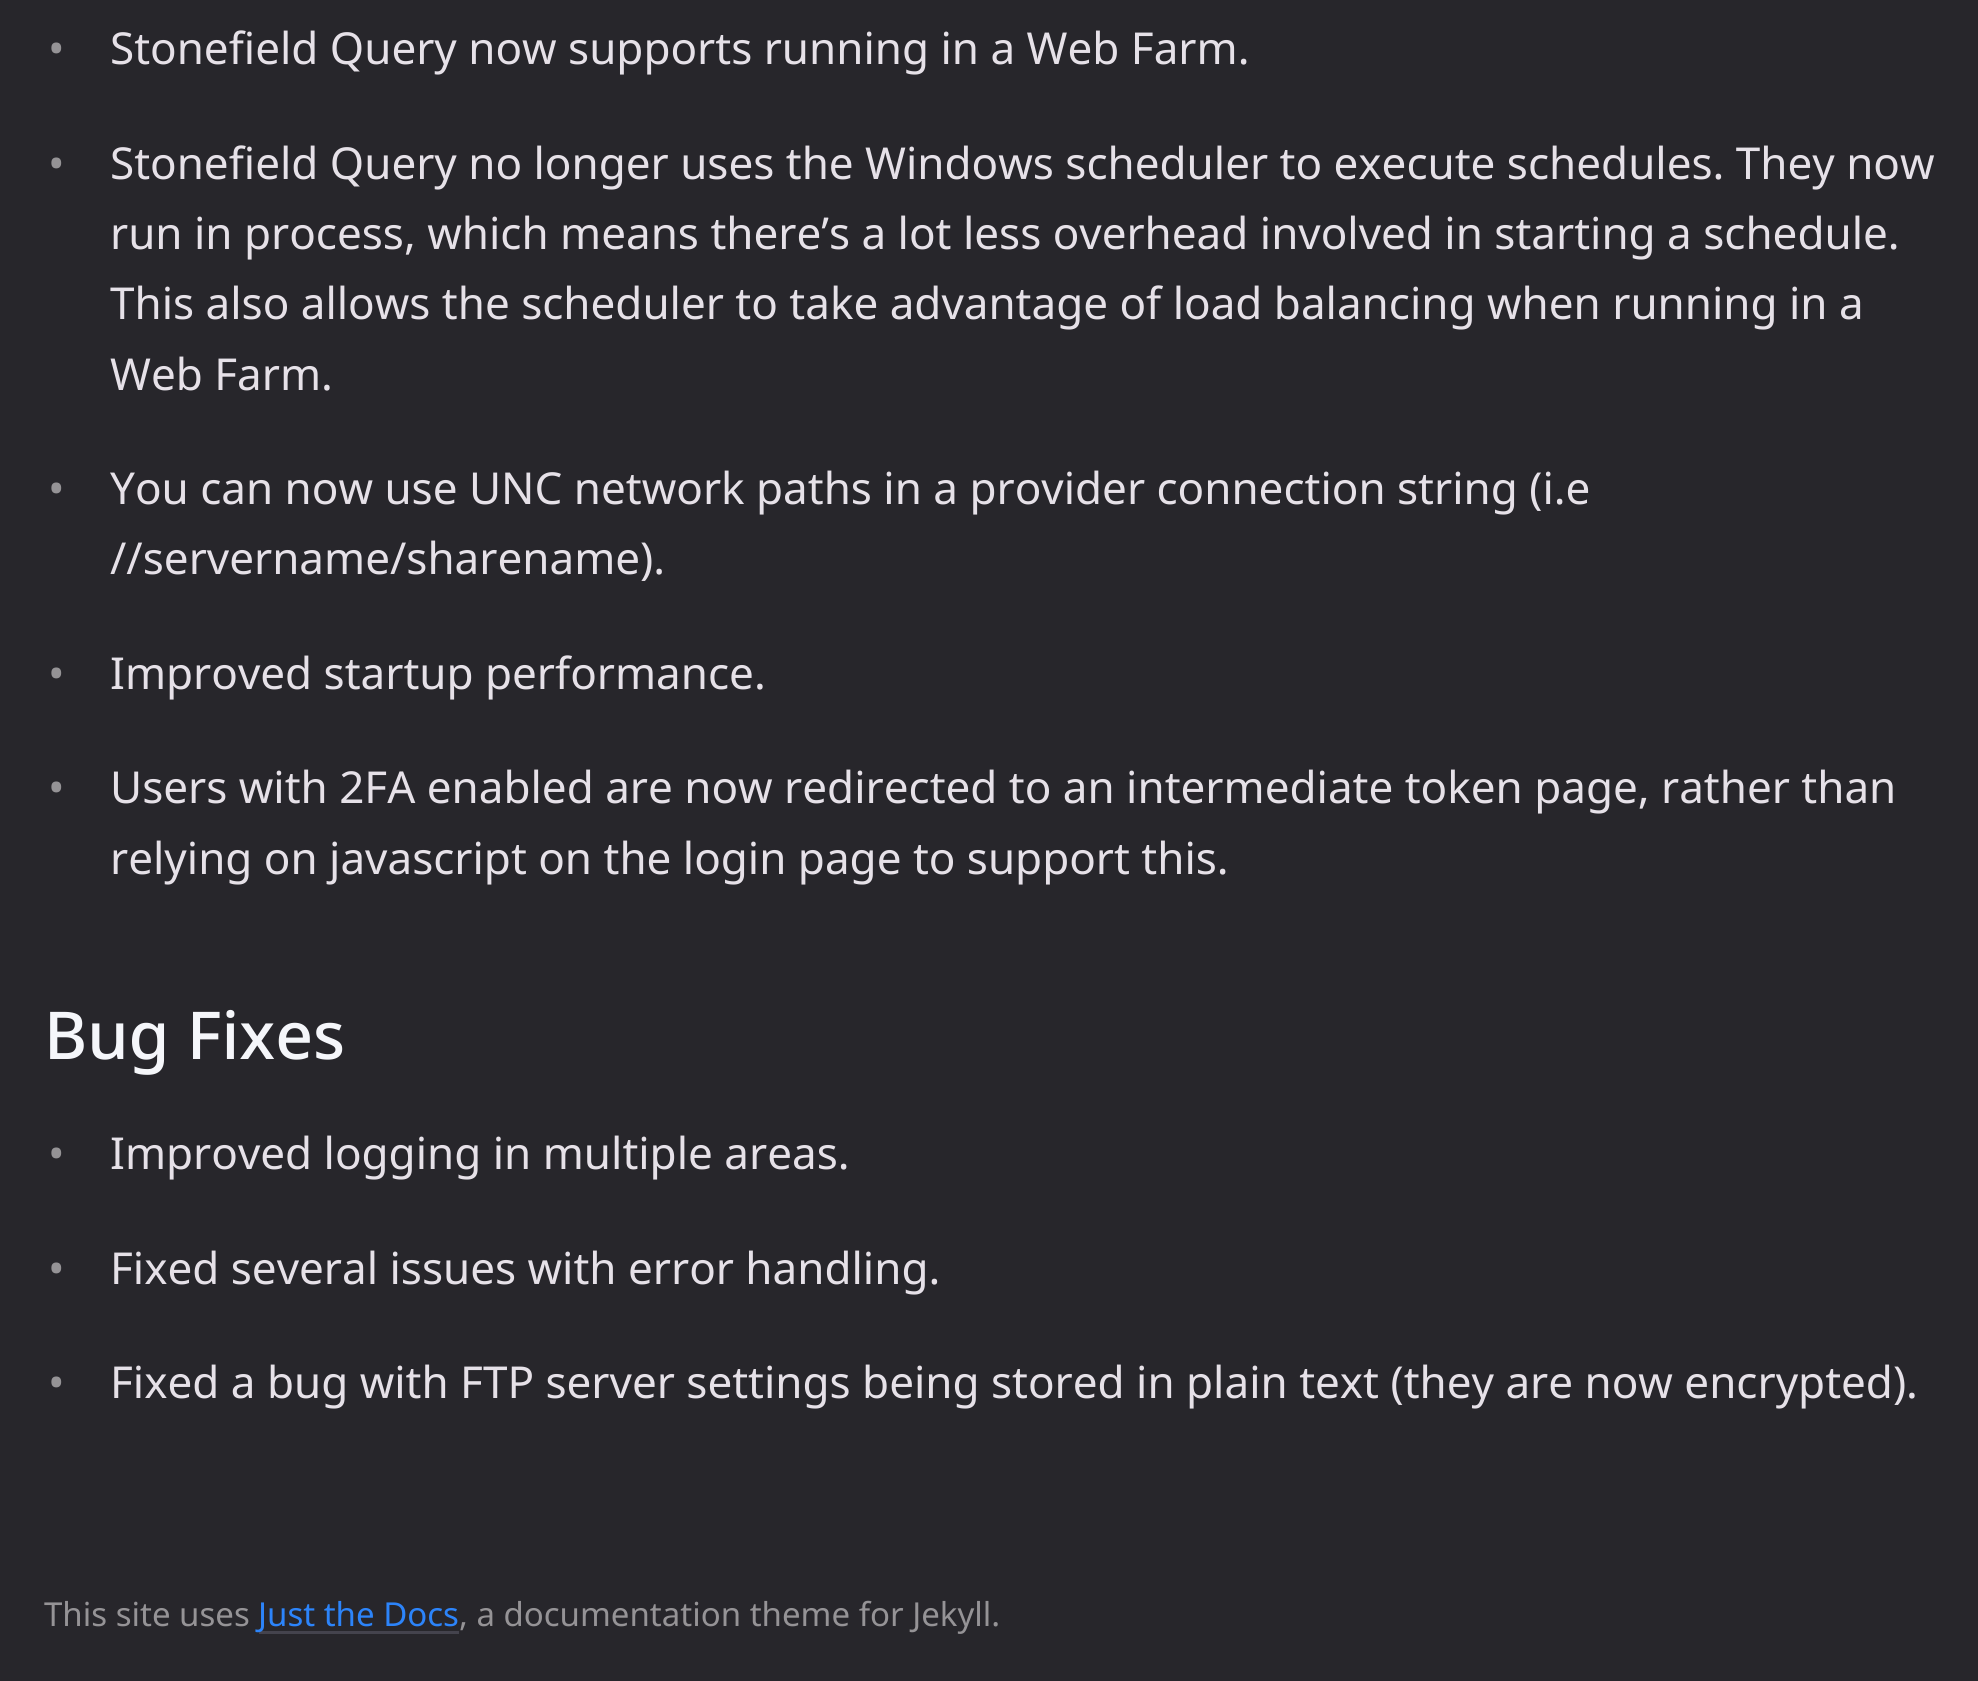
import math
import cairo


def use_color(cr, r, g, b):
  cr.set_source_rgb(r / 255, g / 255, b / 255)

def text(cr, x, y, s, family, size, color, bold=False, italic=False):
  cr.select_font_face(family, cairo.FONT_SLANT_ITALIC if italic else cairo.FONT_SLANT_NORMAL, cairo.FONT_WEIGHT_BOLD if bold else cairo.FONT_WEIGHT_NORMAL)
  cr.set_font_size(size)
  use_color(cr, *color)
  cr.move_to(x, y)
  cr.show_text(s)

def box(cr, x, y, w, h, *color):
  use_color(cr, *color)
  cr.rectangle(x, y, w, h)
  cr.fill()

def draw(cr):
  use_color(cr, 39, 38, 43)
  cr.paint()
  box(cr, 259, 1631, 200, 3, 68, 67, 77)
  text(cr, 48, 64, "•", "Noto Sans", 44, (149, 147, 150))
  text(cr, 110, 64, "Stonefield Query now supports running in a Web Farm.", "Noto Sans", 44, (230, 225, 232))
  text(cr, 48, 179, "•", "Noto Sans", 44, (149, 147, 150))
  text(cr, 110, 179, "Stonefield Query no longer uses the Windows scheduler to execute schedules. They now", "Noto Sans", 44, (230, 225, 232))
  text(cr, 110, 249, "run in process, which means there’s a lot less overhead involved in starting a schedule.", "Noto Sans", 44, (230, 225, 232))
  text(cr, 110, 319, "This also allows the scheduler to take advantage of load balancing when running in a", "Noto Sans", 44, (230, 225, 232))
  text(cr, 110, 390, "Web Farm.", "Noto Sans", 44, (230, 225, 232))
  text(cr, 48, 504, "•", "Noto Sans", 44, (149, 147, 150))
  text(cr, 110, 504, "You can now use UNC network paths in a provider connection string (i.e", "Noto Sans", 44, (230, 225, 232))
  text(cr, 110, 574, "//servername/sharename).", "Noto Sans", 44, (230, 225, 232))
  text(cr, 48, 689, "•", "Noto Sans", 44, (149, 147, 150))
  text(cr, 110, 689, "Improved startup performance.", "Noto Sans", 44, (230, 225, 232))
  text(cr, 48, 803, "•", "Noto Sans", 44, (149, 147, 150))
  text(cr, 110, 803, "Users with 2FA enabled are now redirected to an intermediate token page, rather than", "Noto Sans", 44, (230, 225, 232))
  text(cr, 110, 874, "relying on javascript on the login page to support this.", "Noto Sans", 44, (230, 225, 232))
  text(cr, 44, 1059, "Bug Fixes", "Noto Sans Medium", 66, (245, 246, 250))
  text(cr, 48, 1169, "•", "Noto Sans", 44, (149, 147, 150))
  text(cr, 110, 1169, "Improved logging in multiple areas.", "Noto Sans", 44, (230, 225, 232))
  text(cr, 48, 1284, "•", "Noto Sans", 44, (149, 147, 150))
  text(cr, 110, 1284, "Fixed several issues with error handling.", "Noto Sans", 44, (230, 225, 232))
  text(cr, 48, 1398, "•", "Noto Sans", 44, (149, 147, 150))
  text(cr, 110, 1398, "Fixed a bug with FTP server settings being stored in plain text (they are now encrypted).", "Noto Sans", 44, (230, 225, 232))
  text(cr, 44, 1626, "This site uses", "Noto Sans", 33, (149, 147, 150))
  text(cr, 258, 1626, "Just the Docs", "Noto Sans", 33, (44, 132, 250))
  text(cr, 459, 1626, ", a documentation theme for Jekyll.", "Noto Sans", 33, (149, 147, 150))


surface = cairo.ImageSurface(cairo.FORMAT_RGB24, 1978, 1681)
cr = cairo.Context(surface)
options = cairo.FontOptions()
options.set_hint_metrics(cairo.HINT_METRICS_OFF)
options.set_hint_style(cairo.HINT_STYLE_NONE)
cr.set_font_options(options)
cr.set_miter_limit(4)
draw(cr)
surface.write_to_png("out.png")
